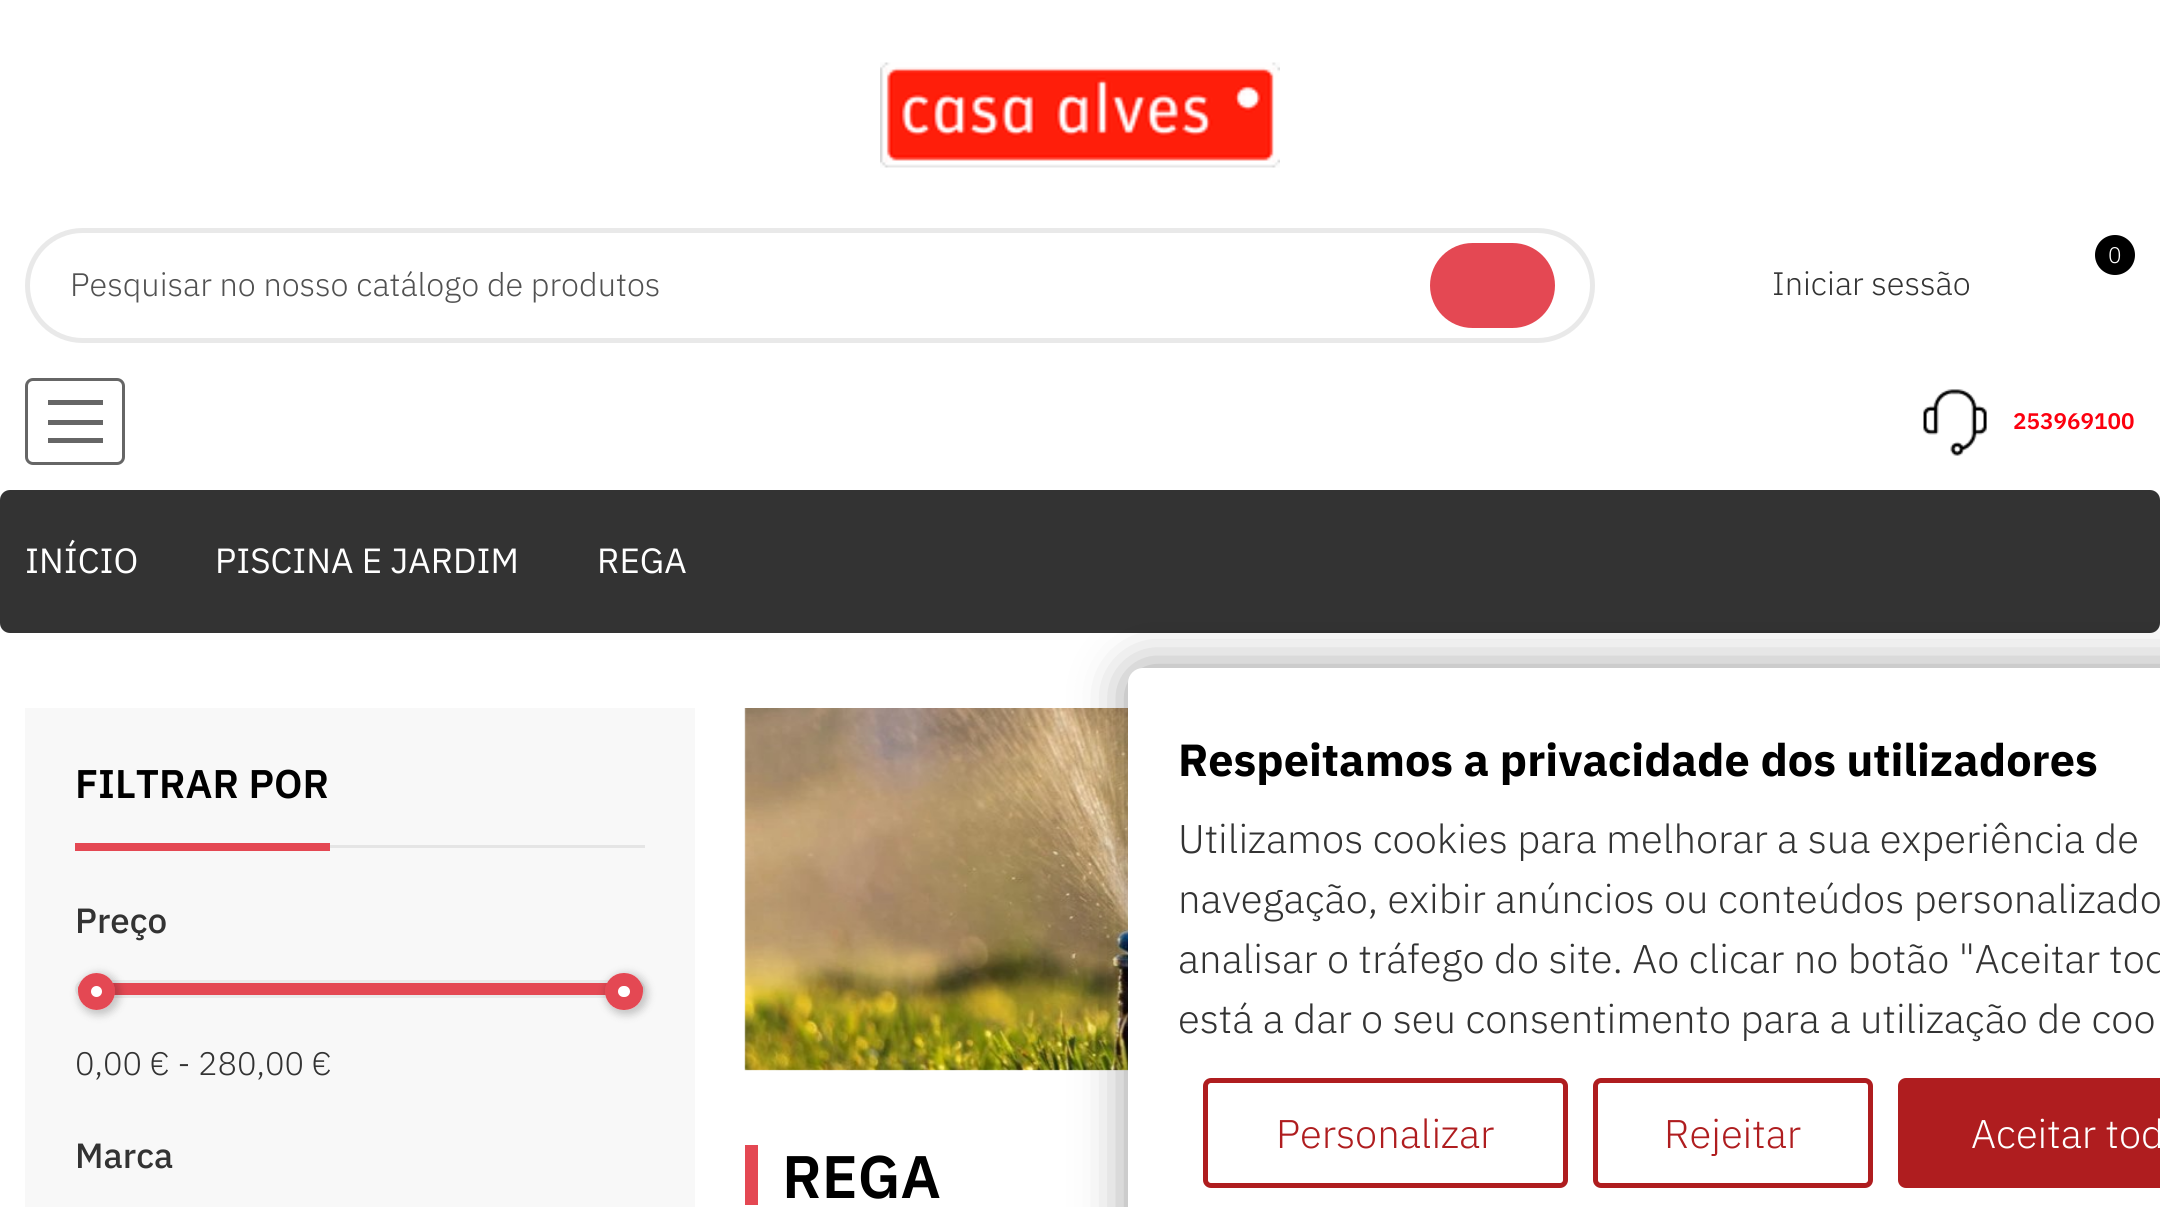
import math
import cairo


def use_color(cr, r, g, b):
  cr.set_source_rgb(r / 255, g / 255, b / 255)

def text(cr, x, y, s, family, size, color, bold=False, italic=False):
  cr.select_font_face(family, cairo.FONT_SLANT_ITALIC if italic else cairo.FONT_SLANT_NORMAL, cairo.FONT_WEIGHT_BOLD if bold else cairo.FONT_WEIGHT_NORMAL)
  cr.set_font_size(size)
  use_color(cr, *color)
  cr.move_to(x, y)
  cr.show_text(s)

def box(cr, x, y, w, h, *color):
  use_color(cr, *color)
  cr.rectangle(x, y, w, h)
  cr.fill()

def round_rect(cr, x, y, w, h, r):
  cr.new_sub_path()
  for i, (u, v) in enumerate([(x + w - r, y + h - r), (x + r, y + h - r), (x + r, y + r), (x + w - r, y + r)]):
    cr.arc(u, v, r, i * math.pi / 2, (i + 1) * math.pi / 2)
  cr.close_path()

def shadow(cr, x, y, w, h, r, blur, alpha):
  cr.push_group_with_content(cairo.CONTENT_ALPHA)
  cr.set_operator(cairo.OPERATOR_SOURCE)
  for i in range(15, -16, -2):
    e = blur * i / 6
    if min(w, h) + 2 * e > 0:
      cr.set_source_rgba(0, 0, 0, alpha * math.erfc((i - 1) / 8.5) / 2)
      round_rect(cr, x - e, y - e, w + 2 * e, h + 2 * e, max(0, min(r + e + blur * .6, min(w, h) / 2 + e)))
      cr.fill()
  cr.mask(cr.pop_group())

def picture(cr, path, x, y, w, h):
  cr.save()
  cr.set_source_surface(cairo.ImageSurface.create_from_png(path), x, y)
  cr.rectangle(x, y, w, h)
  cr.fill()
  cr.restore()

def draw(cr):
  use_color(cr, 255, 255, 255)
  cr.paint()
  picture(cr, "img_01.png", 880, 62, 400, 106)
  round_rect(cr, 27.5, 230.5, 1565, 110, 55)
  use_color(cr, 233, 233, 233)
  cr.set_line_width(5)
  cr.stroke()
  use_color(cr, 228, 72, 83)
  round_rect(cr, 1430, 243, 125, 85, 42.5)
  cr.fill()
  use_color(cr, 0, 0, 0)
  cr.arc(2115, 255, 20, 0, 2 * math.pi)
  cr.fill()
  round_rect(cr, 26.5, 379.5, 97, 84, 6.5)
  use_color(cr, 102, 102, 102)
  cr.set_line_width(3)
  cr.stroke()
  box(cr, 48, 400, 55, 5, 102, 102, 102)
  box(cr, 48, 438, 55, 5, 102, 102, 102)
  box(cr, 48, 420, 55, 5, 102, 102, 102)
  picture(cr, "img_02.png", 1923, 389, 64, 67)
  use_color(cr, 51, 51, 51)
  round_rect(cr, 0, 490, 2160, 143, 10)
  cr.fill()
  box(cr, 25, 708, 670, 499, 248, 248, 248)
  box(cr, 330, 845, 315, 3, 229, 229, 229)
  box(cr, 75, 843, 255, 8, 228, 72, 83)
  round_rect(cr, 76.5, 981.5, 567, 15, 7.5)
  use_color(cr, 234, 234, 234)
  cr.stroke()
  use_color(cr, 228, 72, 83)
  round_rect(cr, 78, 983, 565, 12, 6)
  cr.fill()
  cr.save()
  cr.set_fill_rule(cairo.FILL_RULE_EVEN_ODD)
  cr.new_path()
  cr.move_to(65, 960)
  cr.line_to(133, 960)
  cr.line_to(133, 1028)
  cr.line_to(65, 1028)
  cr.close_path()
  cr.move_to(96.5, 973)
  cr.curve_to(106.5, 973, 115, 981.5, 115, 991.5)
  cr.curve_to(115, 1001.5, 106.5, 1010, 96.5, 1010)
  cr.curve_to(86.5, 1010, 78, 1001.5, 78, 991.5)
  cr.curve_to(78, 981.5, 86.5, 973, 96.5, 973)
  cr.close_path()
  cr.clip()
  use_color(cr, 0, 0, 0)
  shadow(cr, 78, 973, 42, 42, 21, 4, 0.2)
  cr.restore()
  use_color(cr, 255, 255, 255)
  cr.arc(96.5, 991.5, 12, 0, 2 * math.pi)
  cr.fill_preserve()
  use_color(cr, 228, 72, 83)
  cr.set_line_width(13)
  cr.stroke()
  cr.save()
  cr.set_fill_rule(cairo.FILL_RULE_EVEN_ODD)
  cr.new_path()
  cr.move_to(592, 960)
  cr.line_to(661, 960)
  cr.line_to(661, 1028)
  cr.line_to(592, 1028)
  cr.close_path()
  cr.move_to(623.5, 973)
  cr.line_to(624.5, 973)
  cr.curve_to(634.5, 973, 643, 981.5, 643, 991.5)
  cr.curve_to(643, 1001.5, 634.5, 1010, 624.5, 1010)
  cr.line_to(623.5, 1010)
  cr.curve_to(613.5, 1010, 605, 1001.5, 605, 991.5)
  cr.curve_to(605, 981.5, 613.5, 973, 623.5, 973)
  cr.close_path()
  cr.clip()
  use_color(cr, 0, 0, 0)
  shadow(cr, 605, 973, 43, 42, 21, 4, 0.2)
  cr.restore()
  use_color(cr, 255, 255, 255)
  round_rect(cr, 611.5, 979.5, 25, 24, 12)
  cr.fill_preserve()
  use_color(cr, 228, 72, 83)
  cr.stroke()
  picture(cr, "img_03.png", 744, 708, 384, 363)
  box(cr, 745, 1145, 13, 60, 228, 72, 83)
  use_color(cr, 0, 0, 0)
  shadow(cr, 1128, 668, 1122, 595, 15, 25, 0.4)
  use_color(cr, 255, 255, 255)
  round_rect(cr, 1128, 668, 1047, 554, 15)
  cr.fill()
  round_rect(cr, 1205.5, 1080.5, 360, 105, 5.5)
  use_color(cr, 175, 29, 31)
  cr.set_line_width(5)
  cr.stroke()
  round_rect(cr, 1595.5, 1080.5, 275, 105, 5.5)
  cr.stroke()
  round_rect(cr, 1900.5, 1080.5, 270, 105, 5.5)
  cr.fill_preserve()
  cr.stroke()
  text(cr, 70, 296, "Pesquisar no nosso catálogo de produtos", "IBM Plex Sans Light", 32.5, (81, 81, 81))
  text(cr, 2108, 263, "0", "IBM Plex Sans Light", 22.5, (255, 255, 255))
  text(cr, 1772, 295, "Iniciar sessão", "IBM Plex Sans Light", 32.5, (51, 51, 51))
  text(cr, 2013, 429, "253969100", "IBM Plex Sans SemiBold", 22.5, (252, 0, 14))
  text(cr, 25, 573, "INÍCIO", "IBM Plex Sans", 35, (255, 255, 255))
  text(cr, 215, 573, "PISCINA E JARDIM", "IBM Plex Sans", 35, (255, 255, 255))
  text(cr, 597, 573, "REGA", "IBM Plex Sans", 35, (255, 255, 255))
  text(cr, 75, 798, "FILTRAR POR", "IBM Plex Sans SemiBold", 40, (0, 0, 0))
  text(cr, 75, 933, "Preço", "IBM Plex Sans Medium", 35, (51, 51, 51))
  text(cr, 75, 1075, "0,00 € - 280,00 €", "IBM Plex Sans Light", 32.5, (51, 51, 51))
  text(cr, 75, 1168, "Marca", "IBM Plex Sans Medium", 35, (51, 51, 51))
  text(cr, 782, 1198, "REGA", "IBM Plex Sans SemiBold", 60, (0, 0, 0))
  text(cr, 1178, 776, "Respeitamos a privacidade dos utilizadores", "IBM Plex Sans", 45, (0, 0, 0), bold=True)
  text(cr, 1178, 853, "Utilizamos cookies para melhorar a sua experiência de", "IBM Plex Sans Light", 40, (51, 51, 51))
  text(cr, 1178, 913, "navegação, exibir anúncios ou conteúdos personalizado", "IBM Plex Sans Light", 40, (51, 51, 51))
  text(cr, 1178, 973, "analisar o tráfego do site. Ao clicar no botão \"Aceitar tod", "IBM Plex Sans Light", 40, (51, 51, 51))
  text(cr, 1178, 1033, "está a dar o seu consentimento para a utilização de coo", "IBM Plex Sans Light", 40, (51, 51, 51))
  text(cr, 1276, 1148, "Personalizar", "IBM Plex Sans Light", 40, (175, 29, 31))
  text(cr, 1664, 1148, "Rejeitar", "IBM Plex Sans Light", 40, (175, 29, 31))
  text(cr, 1971, 1148, "Aceitar tod", "IBM Plex Sans Light", 40, (255, 255, 255))


surface = cairo.ImageSurface(cairo.FORMAT_RGB24, 2160, 1207)
cr = cairo.Context(surface)
options = cairo.FontOptions()
options.set_hint_metrics(cairo.HINT_METRICS_OFF)
options.set_hint_style(cairo.HINT_STYLE_NONE)
cr.set_font_options(options)
cr.set_miter_limit(4)
draw(cr)
surface.write_to_png("out.png")
